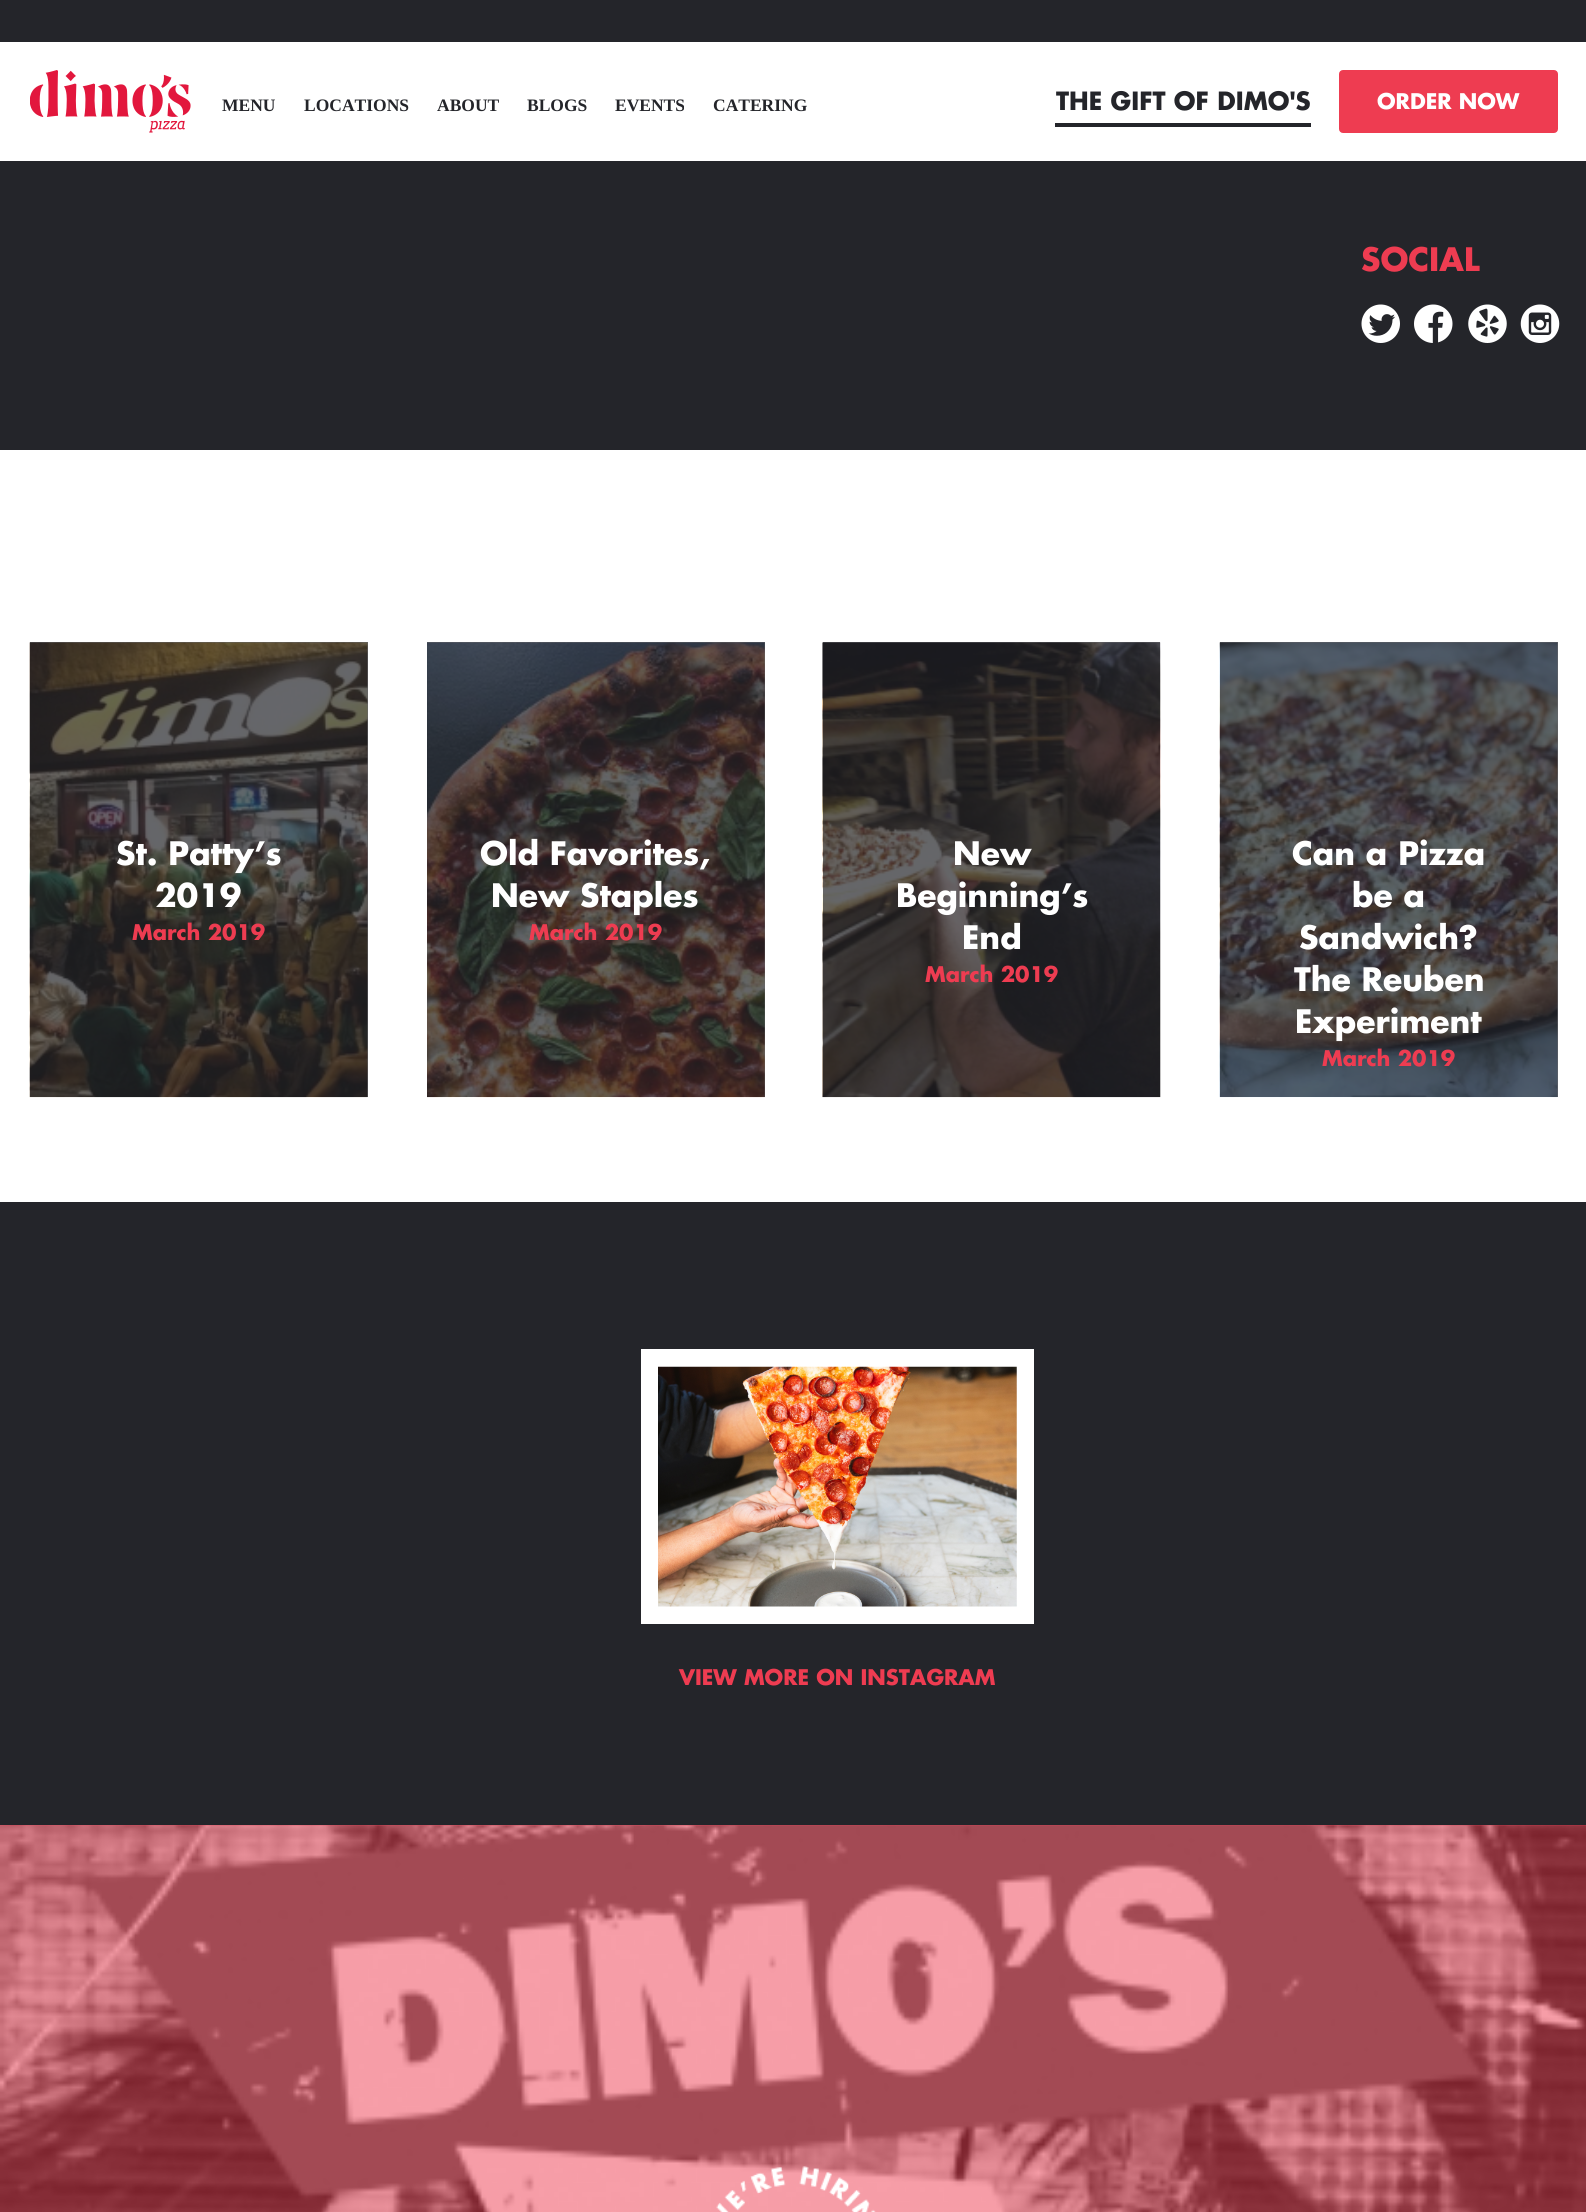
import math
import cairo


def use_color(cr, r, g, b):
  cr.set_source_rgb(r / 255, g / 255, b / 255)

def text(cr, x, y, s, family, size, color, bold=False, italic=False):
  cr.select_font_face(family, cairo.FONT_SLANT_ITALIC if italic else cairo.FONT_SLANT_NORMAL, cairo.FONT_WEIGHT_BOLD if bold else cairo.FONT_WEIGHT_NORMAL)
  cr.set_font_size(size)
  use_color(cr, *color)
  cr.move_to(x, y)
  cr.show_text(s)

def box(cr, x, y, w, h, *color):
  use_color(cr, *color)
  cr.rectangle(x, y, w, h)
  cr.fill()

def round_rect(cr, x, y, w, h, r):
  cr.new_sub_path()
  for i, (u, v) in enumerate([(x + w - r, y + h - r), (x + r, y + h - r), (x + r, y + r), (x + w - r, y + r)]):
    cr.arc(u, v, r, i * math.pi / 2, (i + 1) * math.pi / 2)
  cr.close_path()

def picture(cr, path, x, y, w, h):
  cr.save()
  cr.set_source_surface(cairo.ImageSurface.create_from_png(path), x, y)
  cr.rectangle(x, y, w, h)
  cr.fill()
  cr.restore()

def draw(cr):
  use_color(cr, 36, 37, 42)
  cr.paint()
  box(cr, 0, 42, 1586, 119, 255, 255, 255)
  picture(cr, "img_01.png", 30, 70, 161, 63)
  box(cr, 1055, 123, 256, 4, 36, 37, 42)
  use_color(cr, 238, 60, 81)
  round_rect(cr, 1341, 72, 215, 59, 2)
  cr.fill_preserve()
  cr.set_line_width(4)
  cr.stroke()
  picture(cr, "img_02.png", 1361, 304, 39, 39)
  picture(cr, "img_03.png", 1414, 304, 39, 39)
  picture(cr, "img_04.png", 1468, 304, 39, 39)
  picture(cr, "img_05.png", 1520, 304, 40, 39)
  box(cr, 0, 450, 1586, 752, 255, 255, 255)
  box(cr, 1220, 642, 338, 455, 102, 102, 106)
  box(cr, 823, 642, 337, 1, 102, 102, 106)
  box(cr, 427, 642, 338, 455, 102, 102, 106)
  box(cr, 30, 642, 338, 455, 102, 102, 106)
  picture(cr, "img_06.png", 29, 642, 339, 456)
  picture(cr, "img_07.png", 427, 642, 338, 456)
  picture(cr, "img_08.png", 822, 642, 339, 456)
  picture(cr, "img_09.png", 1219, 642, 339, 456)
  cr.rectangle(650, 1358, 375, 257)
  use_color(cr, 255, 255, 255)
  cr.set_line_width(18)
  cr.stroke()
  picture(cr, "img_10.png", 658, 1366, 359, 241)
  box(cr, 0, 1825, 1586, 387, 238, 60, 81)
  picture(cr, "img_11.png", 0, 1825, 1586, 387)
  picture(cr, "img_12.png", 716, 2166, 160, 46)
  text(cr, 222, 111, "MENU", "Liberation Serif", 17.5, (36, 37, 42), bold=True)
  text(cr, 304, 111, "LOCATIONS", "Liberation Serif", 17.5, (36, 37, 42), bold=True)
  text(cr, 437, 111, "ABOUT", "Liberation Serif", 17.5, (36, 37, 42), bold=True)
  text(cr, 527, 111, "BLOGS", "Liberation Serif", 17.5, (36, 37, 42), bold=True)
  text(cr, 615, 111, "EVENTS", "Liberation Serif", 17.5, (36, 37, 42), bold=True)
  text(cr, 713, 111, "CATERING", "Liberation Serif", 17.5, (36, 37, 42), bold=True)
  text(cr, 1056, 110, "THE GIFT OF DIMO'S", "Futura", 24.5, (36, 37, 42), bold=True)
  text(cr, 1377, 109, "ORDER NOW", "Futura", 21, (255, 255, 255), bold=True)
  text(cr, 1361, 271, "SOCIAL", "Futura", 31.5, (238, 60, 81), bold=True)
  text(cr, 116, 865, "St. Patty’s", "Futura", 31.5, (255, 255, 255), bold=True)
  text(cr, 155, 907, "2019", "Futura", 31.5, (255, 255, 255), bold=True)
  text(cr, 132, 940, "March 2019", "Futura", 21, (238, 60, 81), bold=True)
  text(cr, 480, 865, "Old Favorites,", "Futura", 31.5, (255, 255, 255), bold=True)
  text(cr, 491, 907, "New Staples", "Futura", 31.5, (255, 255, 255), bold=True)
  text(cr, 529, 940, "March 2019", "Futura", 21, (238, 60, 81), bold=True)
  text(cr, 953, 865, "New", "Futura", 31.5, (255, 255, 255), bold=True)
  text(cr, 896, 907, "Beginning’s", "Futura", 31.5, (255, 255, 255), bold=True)
  text(cr, 962, 949, "End", "Futura", 31.5, (255, 255, 255), bold=True)
  text(cr, 925, 982, "March 2019", "Futura", 21, (238, 60, 81), bold=True)
  text(cr, 1292, 865, "Can a Pizza", "Futura", 31.5, (255, 255, 255), bold=True)
  text(cr, 1352, 907, "be a", "Futura", 31.5, (255, 255, 255), bold=True)
  text(cr, 1299, 949, "Sandwich?", "Futura", 31.5, (255, 255, 255), bold=True)
  text(cr, 1294, 991, "The Reuben", "Futura", 31.5, (255, 255, 255), bold=True)
  text(cr, 1295, 1033, "Experiment", "Futura", 31.5, (255, 255, 255), bold=True)
  text(cr, 1322, 1066, "March 2019", "Futura", 21, (238, 60, 81), bold=True)
  text(cr, 679, 1685, "VIEW MORE ON INSTAGRAM", "Futura", 21, (238, 60, 81), bold=True)


surface = cairo.ImageSurface(cairo.FORMAT_RGB24, 1586, 2212)
cr = cairo.Context(surface)
options = cairo.FontOptions()
options.set_hint_metrics(cairo.HINT_METRICS_OFF)
options.set_hint_style(cairo.HINT_STYLE_NONE)
cr.set_font_options(options)
cr.set_miter_limit(4)
draw(cr)
surface.write_to_png("out.png")
